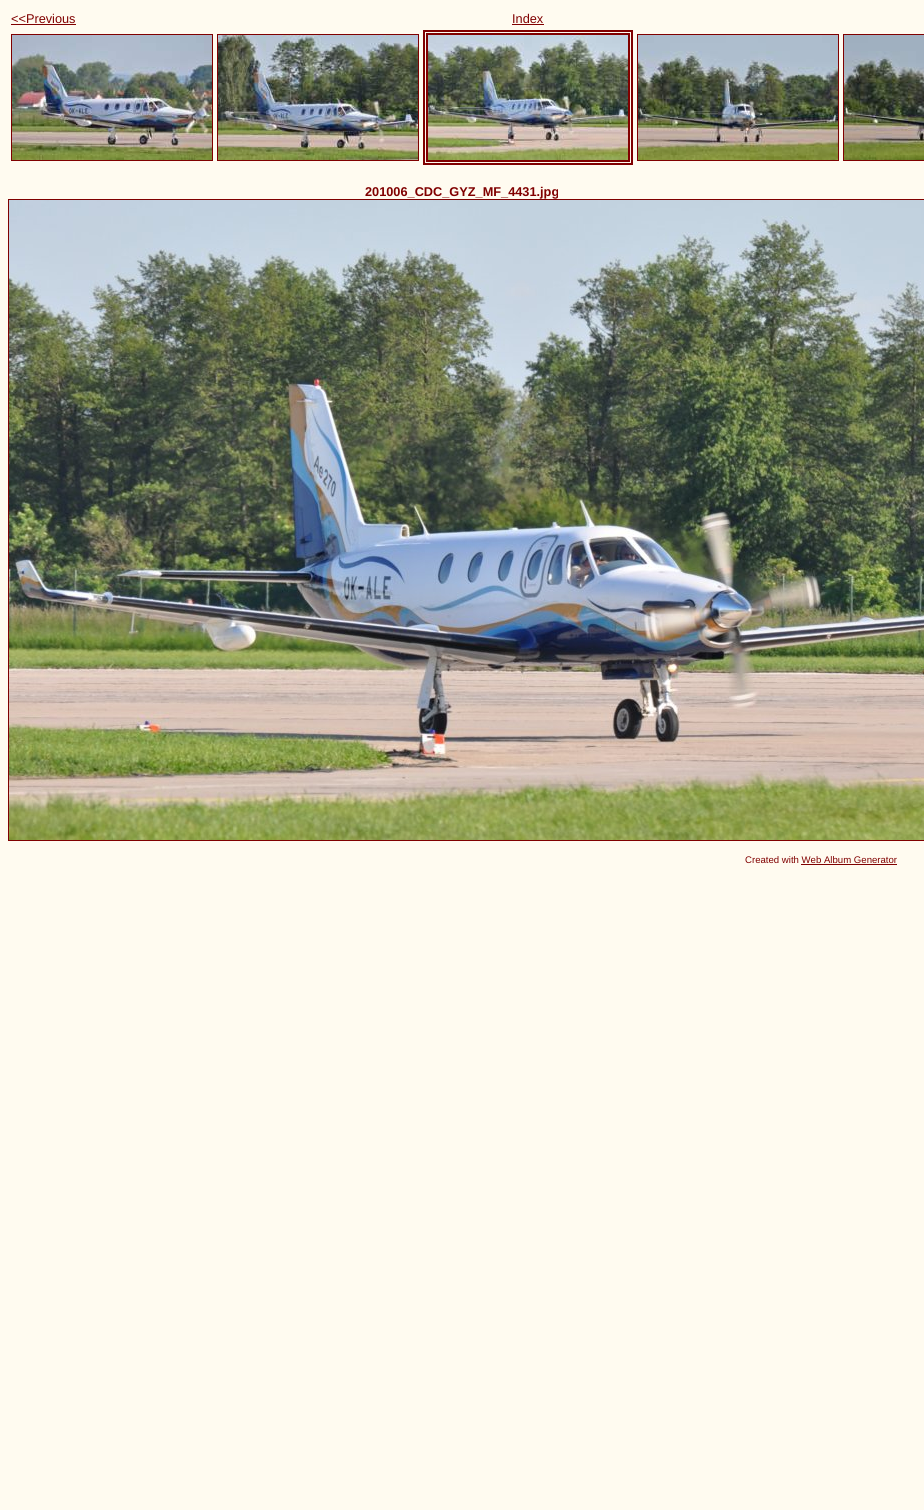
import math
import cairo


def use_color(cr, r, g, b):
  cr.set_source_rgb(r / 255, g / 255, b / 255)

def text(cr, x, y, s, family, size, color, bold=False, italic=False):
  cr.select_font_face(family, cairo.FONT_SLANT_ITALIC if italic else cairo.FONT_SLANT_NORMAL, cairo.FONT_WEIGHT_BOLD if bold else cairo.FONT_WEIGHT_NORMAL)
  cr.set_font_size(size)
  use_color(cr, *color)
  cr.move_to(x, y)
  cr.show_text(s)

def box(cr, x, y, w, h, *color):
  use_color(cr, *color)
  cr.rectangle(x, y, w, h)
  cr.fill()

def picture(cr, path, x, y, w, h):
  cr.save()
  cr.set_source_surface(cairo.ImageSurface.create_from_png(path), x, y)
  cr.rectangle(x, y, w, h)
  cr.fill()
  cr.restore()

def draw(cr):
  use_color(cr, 255, 251, 240)
  cr.paint()
  box(cr, 11, 24, 65, 1, 128, 0, 0)
  box(cr, 512, 24, 32, 1, 128, 0, 0)
  cr.rectangle(11.5, 34.5, 201, 126)
  cr.set_line_width(1)
  cr.stroke()
  picture(cr, "img_01.png", 12, 35, 200, 125)
  cr.rectangle(217.5, 34.5, 201, 126)
  cr.stroke()
  picture(cr, "img_02.png", 218, 35, 200, 125)
  cr.rectangle(424, 31, 208, 133)
  cr.set_line_width(2)
  cr.stroke()
  cr.rectangle(427, 34, 202, 127)
  cr.stroke()
  picture(cr, "img_03.png", 428, 35, 200, 125)
  cr.rectangle(637.5, 34.5, 201, 126)
  cr.set_line_width(1)
  cr.stroke()
  picture(cr, "img_04.png", 638, 35, 200, 125)
  cr.rectangle(843.5, 34.5, 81, 126)
  cr.stroke()
  picture(cr, "img_05.png", 844, 35, 80, 125)
  cr.rectangle(8.5, 199.5, 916, 641)
  cr.stroke()
  picture(cr, "img_06.png", 9, 200, 915, 640)
  box(cr, 801, 864, 96, 1, 128, 0, 0)
  text(cr, 11, 23, "<<Previous", "Liberation Sans", 12.75, (128, 0, 0))
  text(cr, 512, 23, "Index", "Liberation Sans", 12.75, (128, 0, 0))
  text(cr, 365, 196, "201006_CDC_GYZ_MF_4431.jpg", "Liberation Sans", 12.75, (128, 0, 0), bold=True)
  text(cr, 745, 863, "Created with Web Album Generator", "Liberation Sans", 9.6, (128, 0, 0))


surface = cairo.ImageSurface(cairo.FORMAT_RGB24, 924, 1510)
cr = cairo.Context(surface)
options = cairo.FontOptions()
options.set_hint_metrics(cairo.HINT_METRICS_OFF)
options.set_hint_style(cairo.HINT_STYLE_NONE)
cr.set_font_options(options)
cr.set_miter_limit(4)
draw(cr)
surface.write_to_png("out.png")
